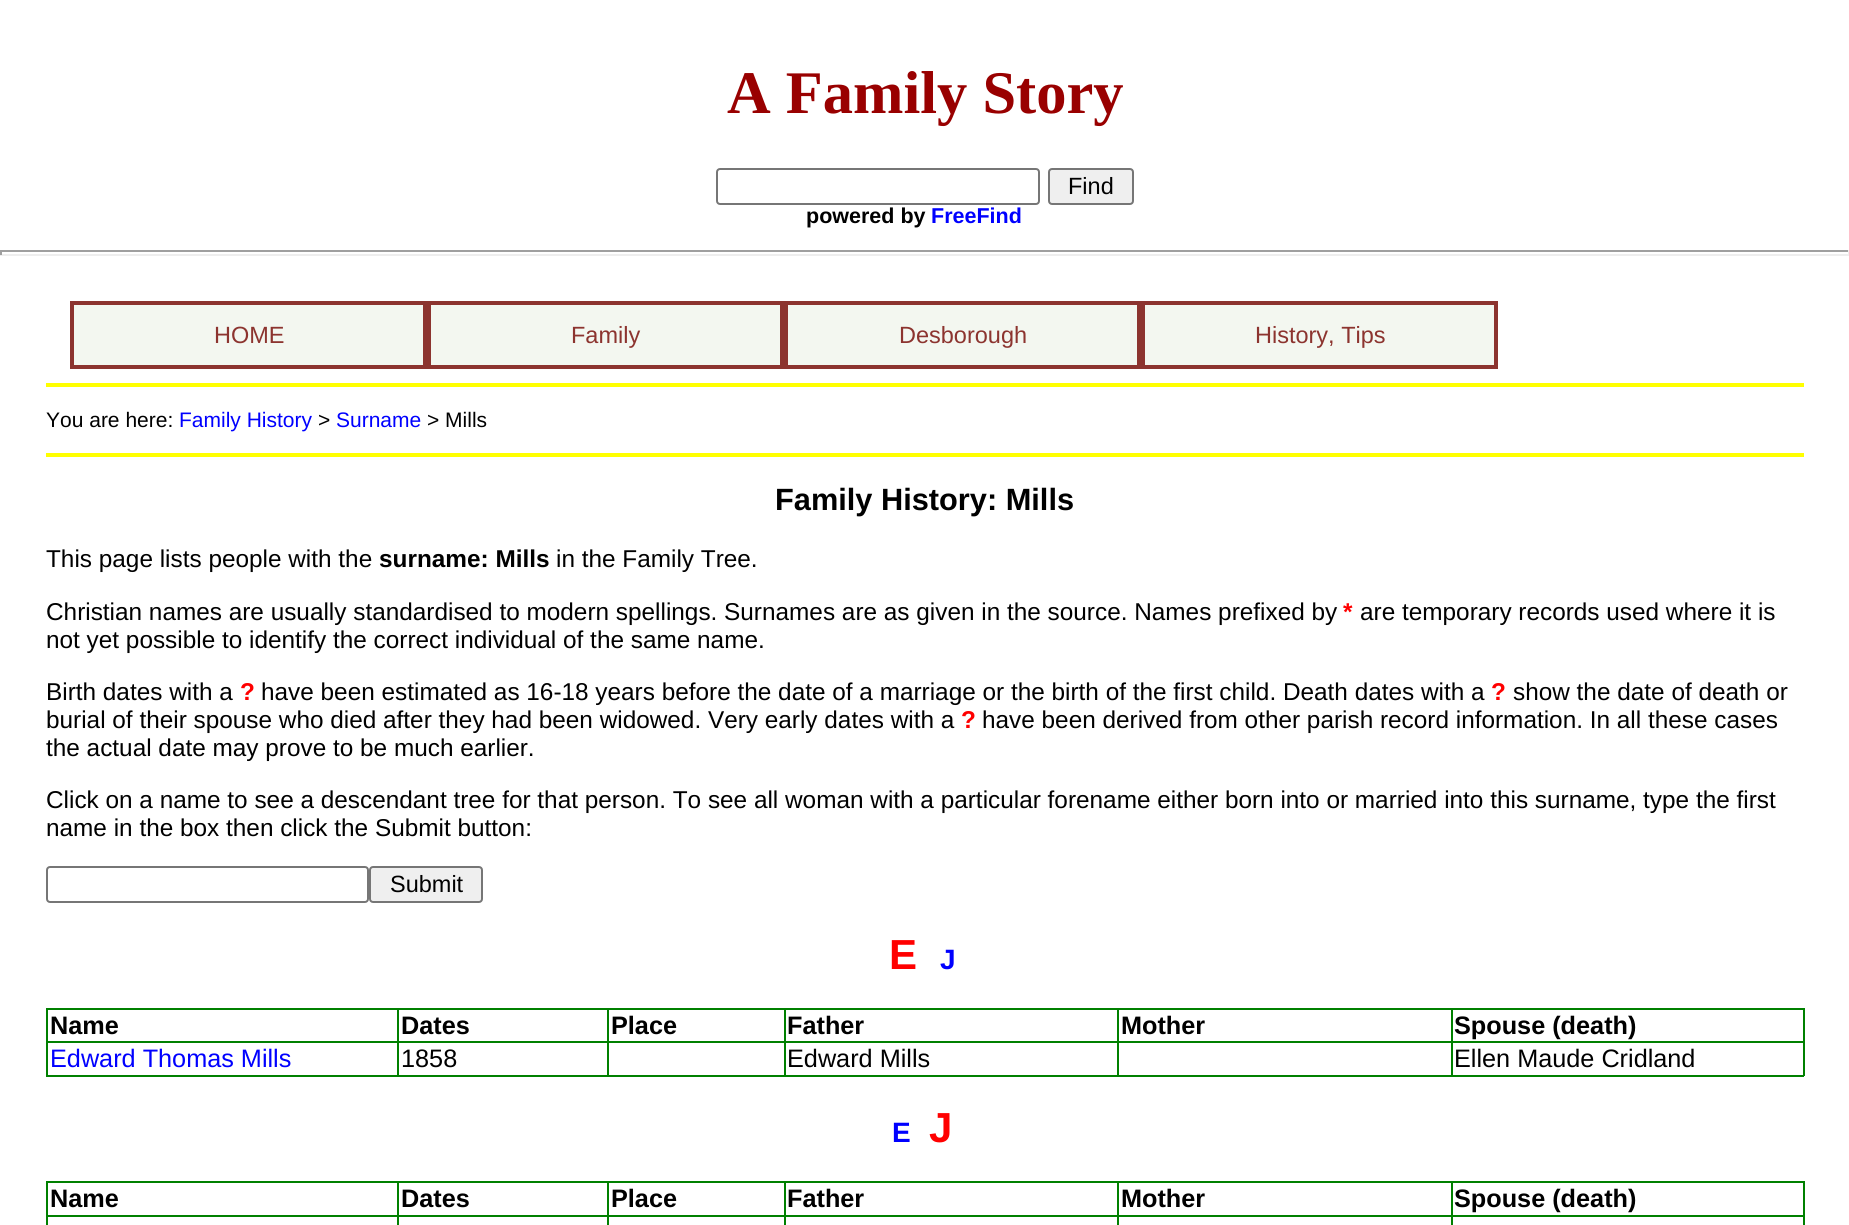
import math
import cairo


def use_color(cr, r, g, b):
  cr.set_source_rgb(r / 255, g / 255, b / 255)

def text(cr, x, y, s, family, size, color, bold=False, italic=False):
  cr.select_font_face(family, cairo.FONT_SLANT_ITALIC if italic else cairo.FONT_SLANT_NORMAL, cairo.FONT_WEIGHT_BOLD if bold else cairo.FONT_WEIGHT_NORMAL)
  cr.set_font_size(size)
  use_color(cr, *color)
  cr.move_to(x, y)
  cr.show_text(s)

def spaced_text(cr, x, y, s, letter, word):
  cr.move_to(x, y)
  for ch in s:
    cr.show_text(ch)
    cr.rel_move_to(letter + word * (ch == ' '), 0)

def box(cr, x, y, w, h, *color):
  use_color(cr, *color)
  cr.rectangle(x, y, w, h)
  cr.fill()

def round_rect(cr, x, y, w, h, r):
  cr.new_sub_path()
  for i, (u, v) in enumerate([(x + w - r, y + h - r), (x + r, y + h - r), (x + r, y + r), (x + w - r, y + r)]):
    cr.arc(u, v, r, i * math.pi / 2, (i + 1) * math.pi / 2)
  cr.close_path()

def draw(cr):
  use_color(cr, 255, 255, 255)
  cr.paint()
  round_rect(cr, 717, 169, 322, 35, 3)
  use_color(cr, 118, 118, 118)
  cr.stroke()
  use_color(cr, 239, 239, 239)
  round_rect(cr, 1049, 169, 84, 35, 3)
  cr.fill_preserve()
  use_color(cr, 118, 118, 118)
  cr.stroke()
  box(cr, 0, 250, 1849, 2, 159, 159, 159)
  box(cr, 1848, 250, 1, 5, 238, 238, 238)
  box(cr, 0, 254, 1849, 2, 238, 238, 238)
  box(cr, 0, 250, 2, 5, 159, 159, 159)
  use_color(cr, 243, 247, 240)
  cr.rectangle(72, 303, 353, 64)
  cr.fill_preserve()
  use_color(cr, 140, 52, 47)
  cr.set_line_width(4)
  cr.stroke()
  use_color(cr, 243, 247, 240)
  cr.rectangle(429, 303, 353, 64)
  cr.fill_preserve()
  use_color(cr, 140, 52, 47)
  cr.stroke()
  use_color(cr, 243, 247, 240)
  cr.rectangle(786, 303, 353, 64)
  cr.fill_preserve()
  use_color(cr, 140, 52, 47)
  cr.stroke()
  use_color(cr, 243, 247, 240)
  cr.rectangle(1143, 303, 353, 64)
  cr.fill_preserve()
  use_color(cr, 140, 52, 47)
  cr.stroke()
  box(cr, 46, 383, 1758, 4, 255, 255, 0)
  box(cr, 46, 453, 1758, 4, 255, 255, 0)
  round_rect(cr, 47, 867, 321, 35, 3)
  use_color(cr, 118, 118, 118)
  cr.set_line_width(2)
  cr.stroke()
  use_color(cr, 239, 239, 239)
  round_rect(cr, 370, 867, 112, 35, 3)
  cr.fill_preserve()
  use_color(cr, 118, 118, 118)
  cr.stroke()
  box(cr, 46, 1008, 1758, 2, 0, 128, 0)
  box(cr, 1803, 1008, 2, 68, 0, 128, 0)
  box(cr, 46, 1075, 1758, 2, 0, 128, 0)
  box(cr, 46, 1008, 2, 68, 0, 128, 0)
  box(cr, 46, 1041, 1758, 2, 0, 128, 0)
  box(cr, 397, 1008, 2, 68, 0, 128, 0)
  box(cr, 607, 1008, 2, 68, 0, 128, 0)
  box(cr, 784, 1008, 2, 68, 0, 128, 0)
  box(cr, 1117, 1008, 2, 68, 0, 128, 0)
  box(cr, 1451, 1008, 2, 68, 0, 128, 0)
  box(cr, 46, 1181, 1758, 2, 0, 128, 0)
  box(cr, 1803, 1181, 2, 44, 0, 128, 0)
  box(cr, 46, 1181, 2, 44, 0, 128, 0)
  box(cr, 46, 1215, 1758, 2, 0, 128, 0)
  box(cr, 397, 1181, 2, 44, 0, 128, 0)
  box(cr, 607, 1181, 2, 44, 0, 128, 0)
  box(cr, 784, 1181, 2, 44, 0, 128, 0)
  box(cr, 1117, 1181, 2, 44, 0, 128, 0)
  box(cr, 1451, 1181, 2, 44, 0, 128, 0)
  text(cr, 727, 113, "A Family Story", "Liberation Serif", 60.5, (153, 0, 0), bold=True)
  text(cr, 1068, 194, "Find", "Liberation Sans", 23.5, (0, 0, 0))
  text(cr, 806, 223, "powered by", "Liberation Sans", 21.5, (0, 0, 0), bold=True)
  text(cr, 931, 223, "FreeFind", "Liberation Sans", 21.5, (0, 0, 255), bold=True)
  text(cr, 214, 343, "HOME", "Liberation Sans", 23.5, (140, 52, 47))
  text(cr, 571, 343, "Family", "Liberation Sans", 23.5, (140, 52, 47))
  text(cr, 899, 343, "Desborough", "Liberation Sans", 23.5, (140, 52, 47))
  text(cr, 1255, 343, "History, Tips", "Liberation Sans", 23.5, (140, 52, 47))
  text(cr, 46, 427, "You are here:", "Liberation Sans", 21, (0, 0, 0))
  text(cr, 179, 427, "Family History", "Liberation Sans", 21, (0, 0, 255))
  text(cr, 318, 427, ">", "Liberation Sans", 21, (0, 0, 0))
  text(cr, 336, 427, "Surname", "Liberation Sans", 21, (0, 0, 255))
  text(cr, 427, 427, "> Mills", "Liberation Sans", 21, (0, 0, 0))
  text(cr, 775, 510, "Family History: Mills", "Liberation Sans", 30.75, (0, 0, 0), bold=True)
  text(cr, 46, 567, "This page lists people with the", "Liberation Sans", 24.35, (0, 0, 0))
  text(cr, 379, 567, "surname: Mills", "Liberation Sans", 24.35, (0, 0, 0), bold=True)
  text(cr, 556, 567, "in the Family Tree.", "Liberation Sans", 24.35, (0, 0, 0))
  text(cr, 46, 620, "Christian names are usually standardised to modern spellings. Surnames are as given in the source. Names prefixed by", "Liberation Sans", 24.35, (0, 0, 0))
  text(cr, 1343, 620, "*", "Liberation Sans", 24.35, (255, 0, 0), bold=True)
  text(cr, 1360, 620, "are temporary records used where it is", "Liberation Sans", 24.35, (0, 0, 0))
  text(cr, 46, 648, "not yet possible to identify the correct individual of the same name.", "Liberation Sans", 24.35, (0, 0, 0))
  text(cr, 46, 700, "Birth dates with a", "Liberation Sans", 24.35, (0, 0, 0))
  text(cr, 240, 700, "?", "Liberation Sans", 24.35, (255, 0, 0), bold=True)
  text(cr, 261, 700, "have been estimated as 16-18 years before the date of a marriage or the birth of the first child. Death dates with a", "Liberation Sans", 24.35, (0, 0, 0))
  text(cr, 1491, 700, "?", "Liberation Sans", 24.35, (255, 0, 0), bold=True)
  text(cr, 1513, 700, "show the date of death or", "Liberation Sans", 24.35, (0, 0, 0))
  text(cr, 46, 728, "burial of their spouse who died after they had been widowed. Very early dates with a", "Liberation Sans", 24.35, (0, 0, 0))
  text(cr, 961, 728, "?", "Liberation Sans", 24.35, (255, 0, 0), bold=True)
  text(cr, 982, 728, "have been derived from other parish record information. In all these cases", "Liberation Sans", 24.35, (0, 0, 0))
  text(cr, 46, 756, "the actual date may prove to be much earlier.", "Liberation Sans", 24.35, (0, 0, 0))
  text(cr, 46, 808, "Click on a name to see a descendant tree for that person. To see all woman with a particular forename either born into or married into this surname, type the first", "Liberation Sans", 24.35, (0, 0, 0))
  text(cr, 46, 836, "name in the box then click the Submit button:", "Liberation Sans", 24.35, (0, 0, 0))
  text(cr, 390, 892, "Submit", "Liberation Sans", 23.5, (0, 0, 0))
  cr.select_font_face("Liberation Sans", cairo.FONT_SLANT_NORMAL, cairo.FONT_WEIGHT_BOLD)
  cr.set_font_size(42)
  use_color(cr, 255, 0, 0)
  spaced_text(cr, 889, 969, "E", 5, 0)
  cr.set_font_size(28)
  use_color(cr, 0, 0, 255)
  spaced_text(cr, 940, 969, "J", 5, 0)
  text(cr, 50, 1034, "Name", "Liberation Sans", 25.25, (0, 0, 0), bold=True)
  text(cr, 401, 1034, "Dates", "Liberation Sans", 25.25, (0, 0, 0), bold=True)
  text(cr, 611, 1034, "Place", "Liberation Sans", 25.25, (0, 0, 0), bold=True)
  text(cr, 787, 1034, "Father", "Liberation Sans", 25.25, (0, 0, 0), bold=True)
  text(cr, 1121, 1034, "Mother", "Liberation Sans", 25.25, (0, 0, 0), bold=True)
  text(cr, 1454, 1034, "Spouse (death)", "Liberation Sans", 25.25, (0, 0, 0), bold=True)
  text(cr, 50, 1067, "Edward Thomas Mills", "Liberation Sans", 25.25, (0, 0, 255))
  text(cr, 401, 1067, "1858", "Liberation Sans", 25.25, (0, 0, 0))
  text(cr, 787, 1067, "Edward Mills", "Liberation Sans", 25.25, (0, 0, 0))
  text(cr, 1454, 1067, "Ellen Maude Cridland", "Liberation Sans", 25.25, (0, 0, 0))
  cr.select_font_face("Liberation Sans", cairo.FONT_SLANT_NORMAL, cairo.FONT_WEIGHT_BOLD)
  cr.set_font_size(28)
  use_color(cr, 0, 0, 255)
  spaced_text(cr, 892, 1142, "E", 5, 0)
  cr.set_font_size(42)
  use_color(cr, 255, 0, 0)
  spaced_text(cr, 929, 1142, "J", 5, 0)
  text(cr, 50, 1207, "Name", "Liberation Sans", 25.25, (0, 0, 0), bold=True)
  text(cr, 401, 1207, "Dates", "Liberation Sans", 25.25, (0, 0, 0), bold=True)
  text(cr, 611, 1207, "Place", "Liberation Sans", 25.25, (0, 0, 0), bold=True)
  text(cr, 787, 1207, "Father", "Liberation Sans", 25.25, (0, 0, 0), bold=True)
  text(cr, 1121, 1207, "Mother", "Liberation Sans", 25.25, (0, 0, 0), bold=True)
  text(cr, 1454, 1207, "Spouse (death)", "Liberation Sans", 25.25, (0, 0, 0), bold=True)


surface = cairo.ImageSurface(cairo.FORMAT_RGB24, 1849, 1225)
cr = cairo.Context(surface)
options = cairo.FontOptions()
options.set_hint_metrics(cairo.HINT_METRICS_OFF)
options.set_hint_style(cairo.HINT_STYLE_NONE)
cr.set_font_options(options)
cr.set_miter_limit(4)
draw(cr)
surface.write_to_png("out.png")
